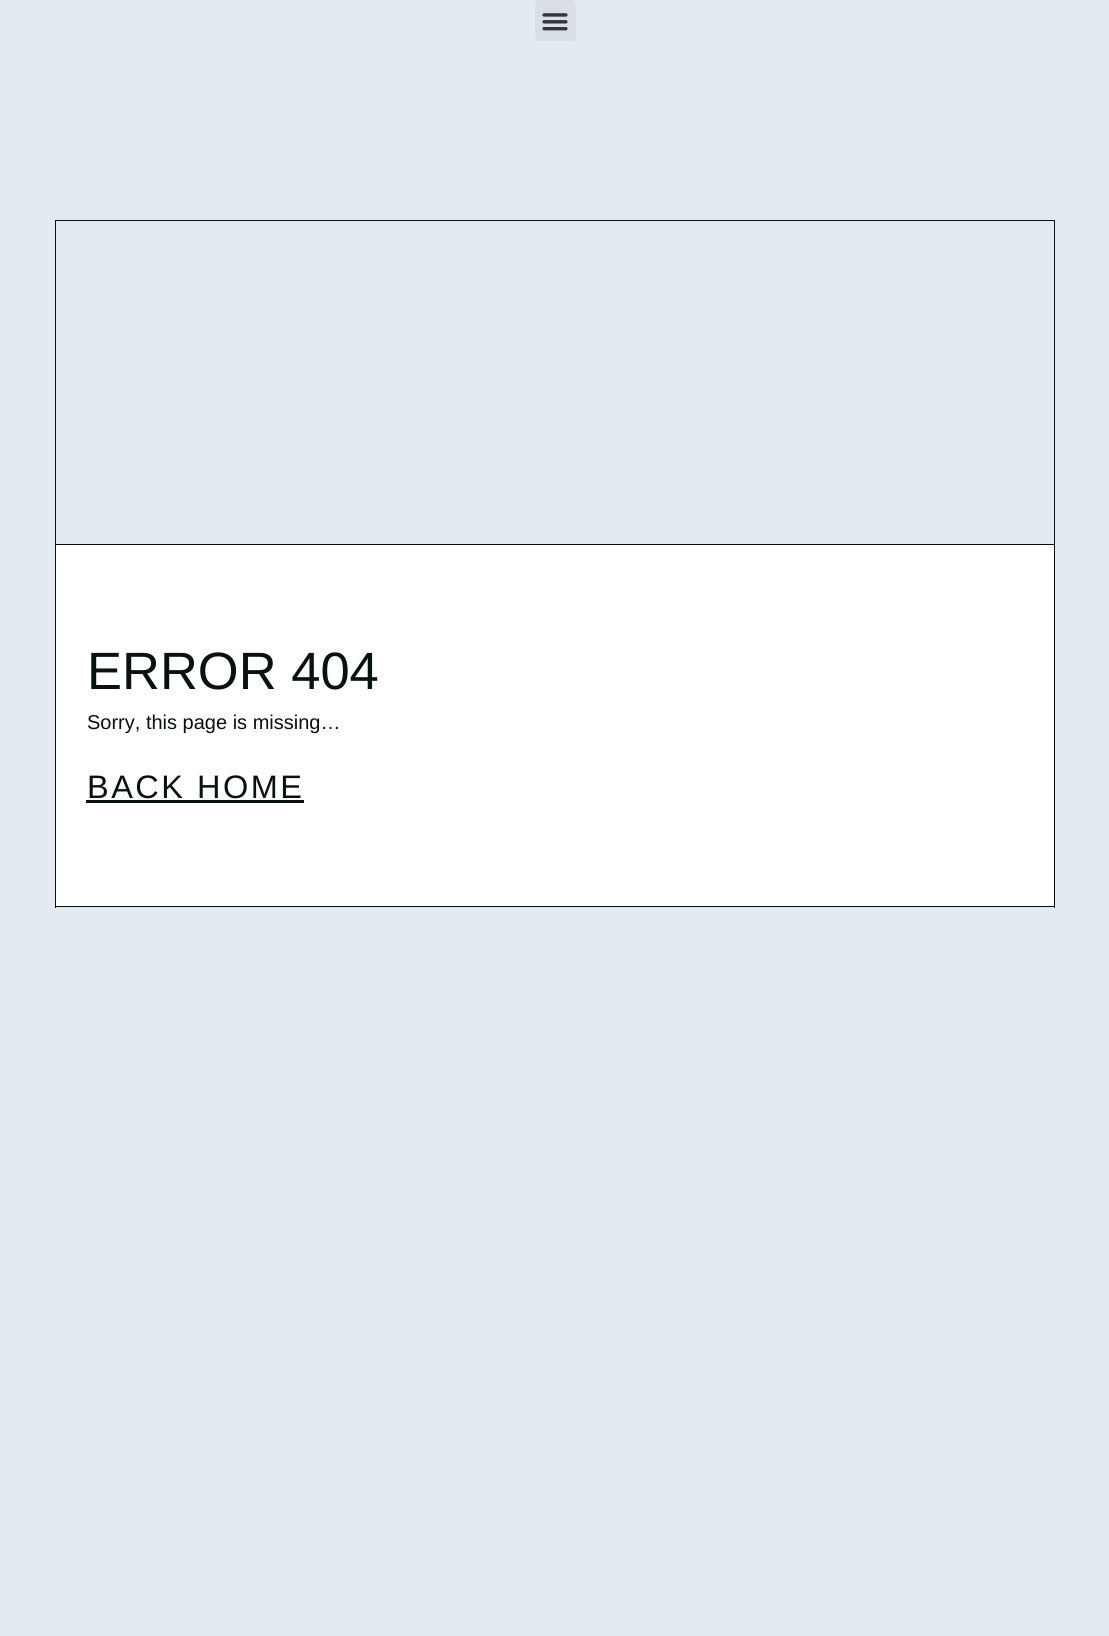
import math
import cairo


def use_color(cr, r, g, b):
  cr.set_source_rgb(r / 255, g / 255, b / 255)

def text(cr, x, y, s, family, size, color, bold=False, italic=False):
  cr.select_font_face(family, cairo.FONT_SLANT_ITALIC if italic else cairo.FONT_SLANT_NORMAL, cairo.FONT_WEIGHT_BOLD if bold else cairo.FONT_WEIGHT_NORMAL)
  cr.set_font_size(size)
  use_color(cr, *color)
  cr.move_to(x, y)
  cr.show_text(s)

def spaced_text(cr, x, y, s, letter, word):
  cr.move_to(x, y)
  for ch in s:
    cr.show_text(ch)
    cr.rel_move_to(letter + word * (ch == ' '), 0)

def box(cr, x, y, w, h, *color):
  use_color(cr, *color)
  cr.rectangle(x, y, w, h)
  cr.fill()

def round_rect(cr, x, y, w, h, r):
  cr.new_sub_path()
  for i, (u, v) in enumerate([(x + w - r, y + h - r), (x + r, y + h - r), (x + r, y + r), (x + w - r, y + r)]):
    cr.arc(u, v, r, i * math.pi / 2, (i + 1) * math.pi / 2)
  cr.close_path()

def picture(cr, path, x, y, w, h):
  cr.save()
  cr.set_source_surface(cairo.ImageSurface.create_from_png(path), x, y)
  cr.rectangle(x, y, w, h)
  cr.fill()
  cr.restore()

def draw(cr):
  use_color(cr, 228, 235, 240)
  cr.paint()
  use_color(cr, 217, 223, 228)
  round_rect(cr, 535, 0, 41, 41, 4)
  cr.fill()
  picture(cr, "img_01.png", 542, 13, 26, 18)
  cr.rectangle(55.5, 220.5, 999, 324)
  use_color(cr, 10, 17, 17)
  cr.set_line_width(1)
  cr.stroke()
  box(cr, 56, 545, 998, 361, 255, 255, 255)
  box(cr, 1054, 545, 1, 363, 10, 17, 17)
  box(cr, 55, 906, 1000, 1, 10, 17, 17)
  box(cr, 55, 545, 1, 363, 10, 17, 17)
  box(cr, 86, 800, 218, 3, 10, 17, 17)
  text(cr, 87, 689, "ERROR 404", "Liberation Sans", 52.5, (10, 17, 17))
  text(cr, 87, 729, "Sorry, this page is missing…", "Liberation Sans", 20, (10, 17, 17))
  cr.set_font_size(32.5)
  spaced_text(cr, 87, 798, "BACK HOME", 2.5, 0)


surface = cairo.ImageSurface(cairo.FORMAT_RGB24, 1109, 1636)
cr = cairo.Context(surface)
options = cairo.FontOptions()
options.set_hint_metrics(cairo.HINT_METRICS_OFF)
options.set_hint_style(cairo.HINT_STYLE_NONE)
cr.set_font_options(options)
cr.set_miter_limit(4)
draw(cr)
surface.write_to_png("out.png")
